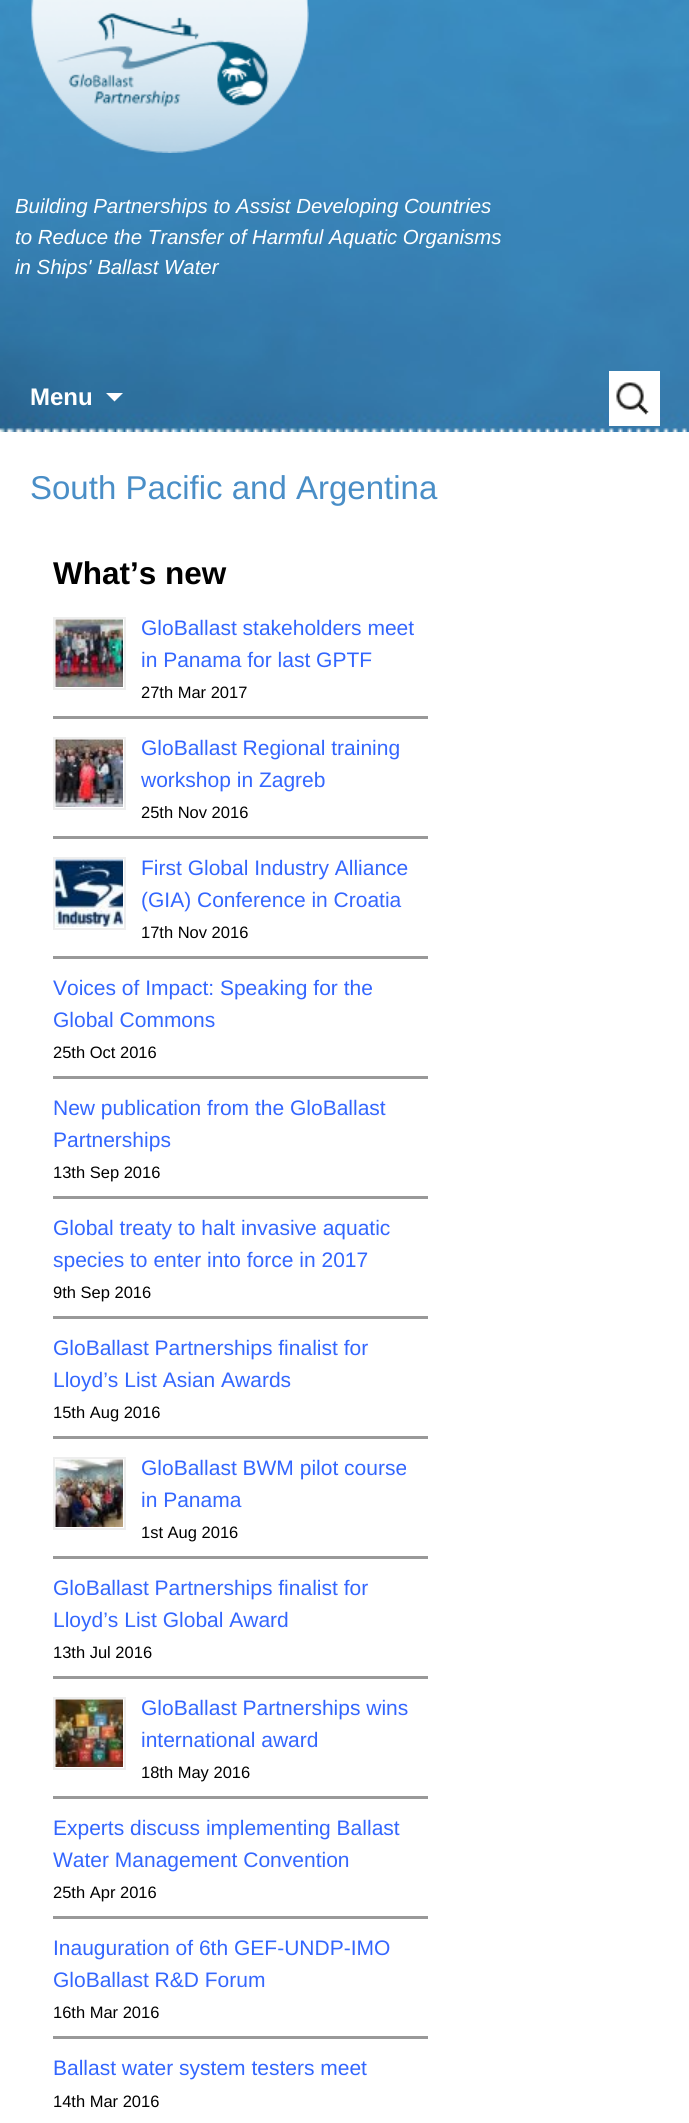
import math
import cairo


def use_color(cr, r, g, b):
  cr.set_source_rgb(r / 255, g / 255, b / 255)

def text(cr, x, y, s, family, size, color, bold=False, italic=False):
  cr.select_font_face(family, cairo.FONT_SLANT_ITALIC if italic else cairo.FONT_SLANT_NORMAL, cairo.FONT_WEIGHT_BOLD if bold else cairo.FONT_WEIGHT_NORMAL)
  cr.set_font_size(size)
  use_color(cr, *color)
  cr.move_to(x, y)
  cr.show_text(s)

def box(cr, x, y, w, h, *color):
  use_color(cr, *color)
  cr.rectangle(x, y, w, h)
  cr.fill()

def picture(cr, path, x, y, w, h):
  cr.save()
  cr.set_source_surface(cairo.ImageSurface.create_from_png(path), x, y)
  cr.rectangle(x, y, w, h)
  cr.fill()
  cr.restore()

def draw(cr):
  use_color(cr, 255, 255, 255)
  cr.paint()
  picture(cr, "img_01.png", 0, 0, 689, 432)
  picture(cr, "img_02.png", 31, 0, 278, 153)
  use_color(cr, 255, 255, 255)
  cr.new_path()
  cr.move_to(106, 393)
  cr.line_to(123, 393)
  cr.line_to(114.5, 401.5)
  cr.close_path()
  cr.fill()
  box(cr, 609, 371, 51, 55, 255, 255, 255)
  picture(cr, "img_03.png", 616, 382, 33, 33)
  box(cr, 53, 716, 375, 3, 153, 153, 153)
  cr.rectangle(54, 618, 71, 71)
  use_color(cr, 238, 238, 238)
  cr.stroke()
  picture(cr, "img_04.png", 55, 619, 68, 68)
  box(cr, 53, 836, 375, 3, 153, 153, 153)
  cr.rectangle(54, 738, 71, 71)
  use_color(cr, 238, 238, 238)
  cr.stroke()
  picture(cr, "img_05.png", 55, 739, 68, 68)
  box(cr, 53, 956, 375, 3, 153, 153, 153)
  cr.rectangle(54, 858, 71, 71)
  use_color(cr, 238, 238, 238)
  cr.stroke()
  picture(cr, "img_06.png", 55, 859, 68, 68)
  box(cr, 53, 1076, 375, 3, 153, 153, 153)
  box(cr, 53, 1196, 375, 3, 153, 153, 153)
  box(cr, 53, 1316, 375, 3, 153, 153, 153)
  box(cr, 53, 1436, 375, 3, 153, 153, 153)
  box(cr, 53, 1556, 375, 3, 153, 153, 153)
  cr.rectangle(54, 1458, 71, 71)
  use_color(cr, 238, 238, 238)
  cr.stroke()
  picture(cr, "img_07.png", 55, 1459, 68, 68)
  box(cr, 53, 1676, 375, 3, 153, 153, 153)
  box(cr, 53, 1796, 375, 3, 153, 153, 153)
  cr.rectangle(54, 1698, 71, 71)
  use_color(cr, 238, 238, 238)
  cr.stroke()
  picture(cr, "img_08.png", 55, 1699, 68, 68)
  box(cr, 53, 1916, 375, 3, 153, 153, 153)
  box(cr, 53, 2036, 375, 3, 153, 153, 153)
  text(cr, 15, 213, "Building Partnerships to Assist Developing Countries", "Liberation Sans", 20.4, (255, 255, 255), italic=True)
  text(cr, 15, 244, "to Reduce the Transfer of Harmful Aquatic Organisms", "Liberation Sans", 20.4, (255, 255, 255), italic=True)
  text(cr, 15, 274, "in Ships' Ballast Water", "Liberation Sans", 20.4, (255, 255, 255), italic=True)
  text(cr, 30, 405, "Menu", "Liberation Sans", 24, (255, 255, 255), bold=True)
  text(cr, 30, 499, "South Pacific and Argentina", "Liberation Sans", 33, (73, 142, 199))
  text(cr, 53, 584, "What’s new", "Liberation Sans", 31.5, (0, 0, 0), bold=True)
  text(cr, 141, 635, "GloBallast stakeholders meet", "Liberation Sans", 21, (51, 102, 255))
  text(cr, 141, 667, "in Panama for last GPTF", "Liberation Sans", 21, (51, 102, 255))
  text(cr, 141, 698, "27th Mar 2017", "Liberation Sans", 16.5, (0, 0, 0))
  text(cr, 141, 755, "GloBallast Regional training", "Liberation Sans", 21, (51, 102, 255))
  text(cr, 141, 787, "workshop in Zagreb", "Liberation Sans", 21, (51, 102, 255))
  text(cr, 141, 818, "25th Nov 2016", "Liberation Sans", 16.5, (0, 0, 0))
  text(cr, 141, 875, "First Global Industry Alliance", "Liberation Sans", 21, (51, 102, 255))
  text(cr, 141, 907, "(GIA) Conference in Croatia", "Liberation Sans", 21, (51, 102, 255))
  text(cr, 141, 938, "17th Nov 2016", "Liberation Sans", 16.5, (0, 0, 0))
  text(cr, 53, 995, "Voices of Impact: Speaking for the", "Liberation Sans", 21, (51, 102, 255))
  text(cr, 53, 1027, "Global Commons", "Liberation Sans", 21, (51, 102, 255))
  text(cr, 53, 1058, "25th Oct 2016", "Liberation Sans", 16.5, (0, 0, 0))
  text(cr, 53, 1115, "New publication from the GloBallast", "Liberation Sans", 21, (51, 102, 255))
  text(cr, 53, 1147, "Partnerships", "Liberation Sans", 21, (51, 102, 255))
  text(cr, 53, 1178, "13th Sep 2016", "Liberation Sans", 16.5, (0, 0, 0))
  text(cr, 53, 1235, "Global treaty to halt invasive aquatic", "Liberation Sans", 21, (51, 102, 255))
  text(cr, 53, 1267, "species to enter into force in 2017", "Liberation Sans", 21, (51, 102, 255))
  text(cr, 53, 1298, "9th Sep 2016", "Liberation Sans", 16.5, (0, 0, 0))
  text(cr, 53, 1355, "GloBallast Partnerships finalist for", "Liberation Sans", 21, (51, 102, 255))
  text(cr, 53, 1387, "Lloyd’s List Asian Awards", "Liberation Sans", 21, (51, 102, 255))
  text(cr, 53, 1418, "15th Aug 2016", "Liberation Sans", 16.5, (0, 0, 0))
  text(cr, 141, 1475, "GloBallast BWM pilot course", "Liberation Sans", 21, (51, 102, 255))
  text(cr, 141, 1507, "in Panama", "Liberation Sans", 21, (51, 102, 255))
  text(cr, 141, 1538, "1st Aug 2016", "Liberation Sans", 16.5, (0, 0, 0))
  text(cr, 53, 1595, "GloBallast Partnerships finalist for", "Liberation Sans", 21, (51, 102, 255))
  text(cr, 53, 1627, "Lloyd’s List Global Award", "Liberation Sans", 21, (51, 102, 255))
  text(cr, 53, 1658, "13th Jul 2016", "Liberation Sans", 16.5, (0, 0, 0))
  text(cr, 141, 1715, "GloBallast Partnerships wins", "Liberation Sans", 21, (51, 102, 255))
  text(cr, 141, 1747, "international award", "Liberation Sans", 21, (51, 102, 255))
  text(cr, 141, 1778, "18th May 2016", "Liberation Sans", 16.5, (0, 0, 0))
  text(cr, 53, 1835, "Experts discuss implementing Ballast", "Liberation Sans", 21, (51, 102, 255))
  text(cr, 53, 1867, "Water Management Convention", "Liberation Sans", 21, (51, 102, 255))
  text(cr, 53, 1898, "25th Apr 2016", "Liberation Sans", 16.5, (0, 0, 0))
  text(cr, 53, 1955, "Inauguration of 6th GEF-UNDP-IMO", "Liberation Sans", 21, (51, 102, 255))
  text(cr, 53, 1987, "GloBallast R&D Forum", "Liberation Sans", 21, (51, 102, 255))
  text(cr, 53, 2018, "16th Mar 2016", "Liberation Sans", 16.5, (0, 0, 0))
  text(cr, 53, 2075, "Ballast water system testers meet", "Liberation Sans", 21, (51, 102, 255))
  text(cr, 53, 2107, "14th Mar 2016", "Liberation Sans", 16.5, (0, 0, 0))


surface = cairo.ImageSurface(cairo.FORMAT_RGB24, 689, 2123)
cr = cairo.Context(surface)
options = cairo.FontOptions()
options.set_hint_metrics(cairo.HINT_METRICS_OFF)
options.set_hint_style(cairo.HINT_STYLE_NONE)
cr.set_font_options(options)
cr.set_miter_limit(4)
draw(cr)
surface.write_to_png("out.png")
